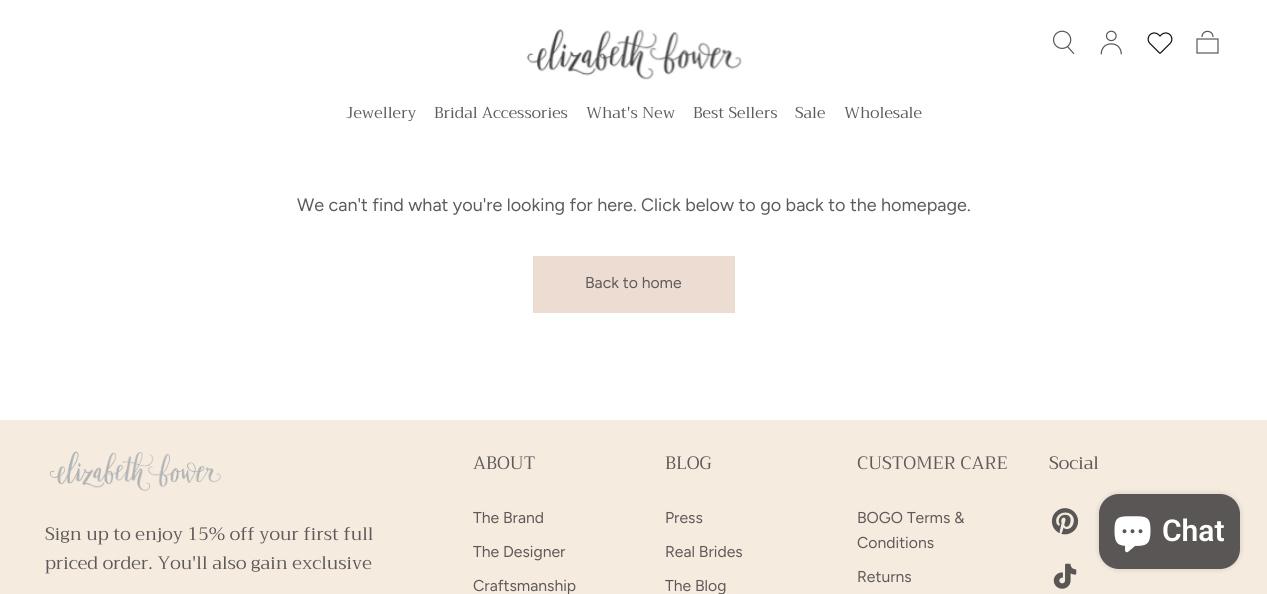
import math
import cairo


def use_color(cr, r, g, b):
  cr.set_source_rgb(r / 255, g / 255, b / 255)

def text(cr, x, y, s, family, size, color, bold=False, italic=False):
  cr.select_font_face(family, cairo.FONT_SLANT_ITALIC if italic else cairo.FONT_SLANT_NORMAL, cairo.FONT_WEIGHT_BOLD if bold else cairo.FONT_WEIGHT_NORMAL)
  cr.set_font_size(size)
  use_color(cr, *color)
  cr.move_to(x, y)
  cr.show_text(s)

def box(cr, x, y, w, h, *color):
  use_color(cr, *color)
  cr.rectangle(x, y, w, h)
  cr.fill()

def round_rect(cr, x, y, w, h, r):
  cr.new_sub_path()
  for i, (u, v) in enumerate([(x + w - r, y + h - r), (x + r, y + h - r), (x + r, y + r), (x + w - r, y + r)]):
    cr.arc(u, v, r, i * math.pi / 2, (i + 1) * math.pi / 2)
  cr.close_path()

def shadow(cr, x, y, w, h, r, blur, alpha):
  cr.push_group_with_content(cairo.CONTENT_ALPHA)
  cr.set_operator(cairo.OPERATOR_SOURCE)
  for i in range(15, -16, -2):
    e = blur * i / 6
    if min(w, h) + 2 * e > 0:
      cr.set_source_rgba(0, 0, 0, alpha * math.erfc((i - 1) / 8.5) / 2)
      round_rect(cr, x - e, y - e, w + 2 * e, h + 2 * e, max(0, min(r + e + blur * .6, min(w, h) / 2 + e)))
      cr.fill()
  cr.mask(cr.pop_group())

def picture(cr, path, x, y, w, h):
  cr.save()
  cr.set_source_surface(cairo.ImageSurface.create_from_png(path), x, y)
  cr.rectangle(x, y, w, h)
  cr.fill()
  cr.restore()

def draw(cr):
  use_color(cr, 255, 255, 255)
  cr.paint()
  picture(cr, "img_01.png", 526, 29, 216, 51)
  picture(cr, "img_02.png", 1053, 30, 22, 24)
  picture(cr, "img_03.png", 1100, 30, 22, 25)
  picture(cr, "img_04.png", 1147, 32, 26, 22)
  cr.new_path()
  cr.move_to(1218, 53)
  cr.line_to(1197, 53)
  cr.line_to(1197, 39)
  cr.line_to(1218, 39)
  cr.close_path()
  cr.move_to(1213, 37)
  cr.curve_to(1213, 29.5, 1202, 29.5, 1202, 37)
  use_color(cr, 89, 86, 85)
  cr.set_line_width(1.2)
  cr.stroke()
  box(cr, 533, 256, 202, 57, 236, 220, 209)
  box(cr, 0, 420, 1267, 174, 245, 235, 223)
  picture(cr, "img_05.png", 1051, 508, 28, 27)
  picture(cr, "img_06.png", 1053, 563, 24, 26)
  picture(cr, "img_07.png", 49, 451, 172, 40)
  use_color(cr, 0, 0, 0)
  shadow(cr, 1099, 494, 141, 75, 20, 3, 0.15)
  use_color(cr, 89, 86, 85)
  round_rect(cr, 1099, 494, 141, 75, 20)
  cr.fill()
  picture(cr, "img_08.png", 1114, 516, 37, 37)
  text(cr, 346, 118, "Jewellery", "Trirong", 15.75, (94, 90, 89))
  text(cr, 434, 118, "Bridal Accessories", "Trirong", 15.75, (94, 90, 89))
  text(cr, 586, 118, "What's New", "Trirong", 15.75, (94, 90, 89))
  text(cr, 693, 118, "Best Sellers", "Trirong", 15.75, (94, 90, 89))
  text(cr, 795, 118, "Sale", "Trirong", 15.75, (94, 90, 89))
  text(cr, 844, 118, "Wholesale", "Trirong", 15.75, (94, 90, 89))
  text(cr, 297, 211, "We can't find what you're looking for here. Click below to go back to the homepage.", "Figtree", 18, (94, 90, 89))
  text(cr, 585, 288, "Back to home", "Figtree", 15.75, (94, 90, 89))
  text(cr, 473, 469, "ABOUT", "Trirong", 18, (94, 90, 89))
  text(cr, 473, 523, "The Brand", "Figtree", 15.75, (94, 90, 89))
  text(cr, 473, 557, "The Designer", "Figtree", 15.75, (94, 90, 89))
  text(cr, 473, 591, "Craftsmanship", "Figtree", 15.75, (94, 90, 89))
  text(cr, 665, 469, "BLOG", "Trirong", 18, (94, 90, 89))
  text(cr, 665, 523, "Press", "Figtree", 15.75, (94, 90, 89))
  text(cr, 665, 557, "Real Brides", "Figtree", 15.75, (94, 90, 89))
  text(cr, 665, 591, "The Blog", "Figtree", 15.75, (94, 90, 89))
  text(cr, 857, 469, "CUSTOMER CARE", "Trirong", 18, (94, 90, 89))
  text(cr, 857, 523, "BOGO Terms &", "Figtree", 15.75, (94, 90, 89))
  text(cr, 857, 548, "Conditions", "Figtree", 15.75, (94, 90, 89))
  text(cr, 857, 582, "Returns", "Figtree", 15.75, (94, 90, 89))
  text(cr, 1049, 469, "Social", "Trirong", 18, (94, 90, 89))
  text(cr, 45, 540, "Sign up to enjoy 15% off your first full", "Trirong", 18, (94, 90, 89))
  text(cr, 45, 569, "priced order. You'll also gain exclusive", "Trirong", 18, (94, 90, 89))
  text(cr, 1162, 541, "Chat", "Roboto SemiBold", 30, (255, 255, 255))


surface = cairo.ImageSurface(cairo.FORMAT_RGB24, 1267, 594)
cr = cairo.Context(surface)
options = cairo.FontOptions()
options.set_hint_metrics(cairo.HINT_METRICS_OFF)
options.set_hint_style(cairo.HINT_STYLE_NONE)
cr.set_font_options(options)
cr.set_miter_limit(4)
draw(cr)
surface.write_to_png("out.png")
